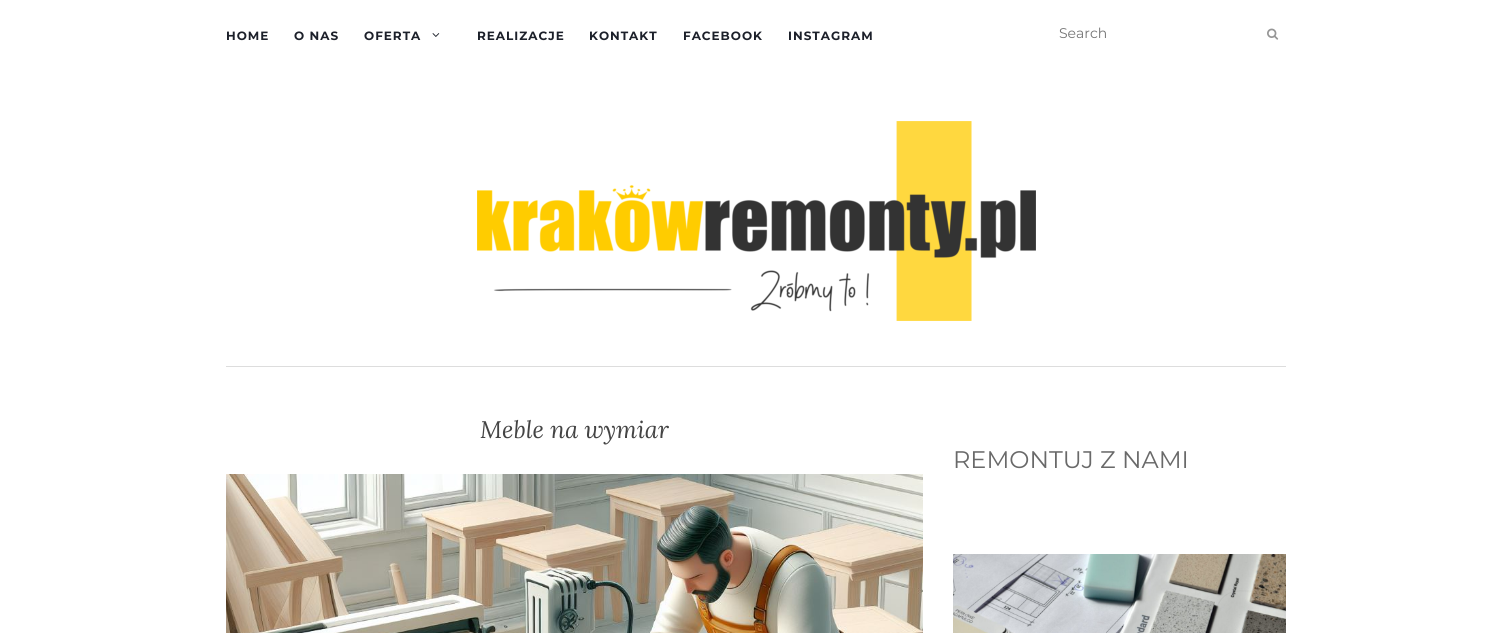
import math
import cairo


def use_color(cr, r, g, b):
  cr.set_source_rgb(r / 255, g / 255, b / 255)

def text(cr, x, y, s, family, size, color, bold=False, italic=False):
  cr.select_font_face(family, cairo.FONT_SLANT_ITALIC if italic else cairo.FONT_SLANT_NORMAL, cairo.FONT_WEIGHT_BOLD if bold else cairo.FONT_WEIGHT_NORMAL)
  cr.set_font_size(size)
  use_color(cr, *color)
  cr.move_to(x, y)
  cr.show_text(s)

def spaced_text(cr, x, y, s, letter, word):
  cr.move_to(x, y)
  for ch in s:
    cr.show_text(ch)
    cr.rel_move_to(letter + word * (ch == ' '), 0)

def box(cr, x, y, w, h, *color):
  use_color(cr, *color)
  cr.rectangle(x, y, w, h)
  cr.fill()

def picture(cr, path, x, y, w, h):
  cr.save()
  cr.set_source_surface(cairo.ImageSurface.create_from_png(path), x, y)
  cr.rectangle(x, y, w, h)
  cr.fill()
  cr.restore()

def draw(cr):
  use_color(cr, 255, 255, 255)
  cr.paint()
  picture(cr, "img_01.png", 432, 33, 8, 4)
  picture(cr, "img_02.png", 1267, 28, 12, 12)
  picture(cr, "img_03.png", 477, 121, 559, 200)
  box(cr, 226, 366, 1060, 1, 221, 221, 221)
  picture(cr, "img_04.png", 226, 474, 697, 159)
  picture(cr, "img_05.png", 953, 554, 333, 79)
  cr.select_font_face("Montserrat", cairo.FONT_SLANT_NORMAL, cairo.FONT_WEIGHT_BOLD)
  cr.set_font_size(12)
  use_color(cr, 28, 32, 42)
  spaced_text(cr, 226, 40, "HOME", 1, 0)
  spaced_text(cr, 294, 40, "O NAS", 1, 0)
  spaced_text(cr, 364, 40, "OFERTA", 1, 0)
  spaced_text(cr, 477, 40, "REALIZACJE", 1, 0)
  spaced_text(cr, 589, 40, "KONTAKT", 1, 0)
  spaced_text(cr, 683, 40, "FACEBOOK", 1, 0)
  spaced_text(cr, 788, 40, "INSTAGRAM", 1, 0)
  text(cr, 1059, 38, "Search", "Montserrat", 14, (117, 117, 117))
  text(cr, 480, 438, "Meble na wymiar", "Lora", 24, (68, 68, 68), italic=True)
  text(cr, 953, 468, "REMONTUJ Z NAMI", "Montserrat", 24, (105, 105, 105))


surface = cairo.ImageSurface(cairo.FORMAT_RGB24, 1512, 633)
cr = cairo.Context(surface)
options = cairo.FontOptions()
options.set_hint_metrics(cairo.HINT_METRICS_OFF)
options.set_hint_style(cairo.HINT_STYLE_NONE)
cr.set_font_options(options)
cr.set_miter_limit(4)
draw(cr)
surface.write_to_png("out.png")
